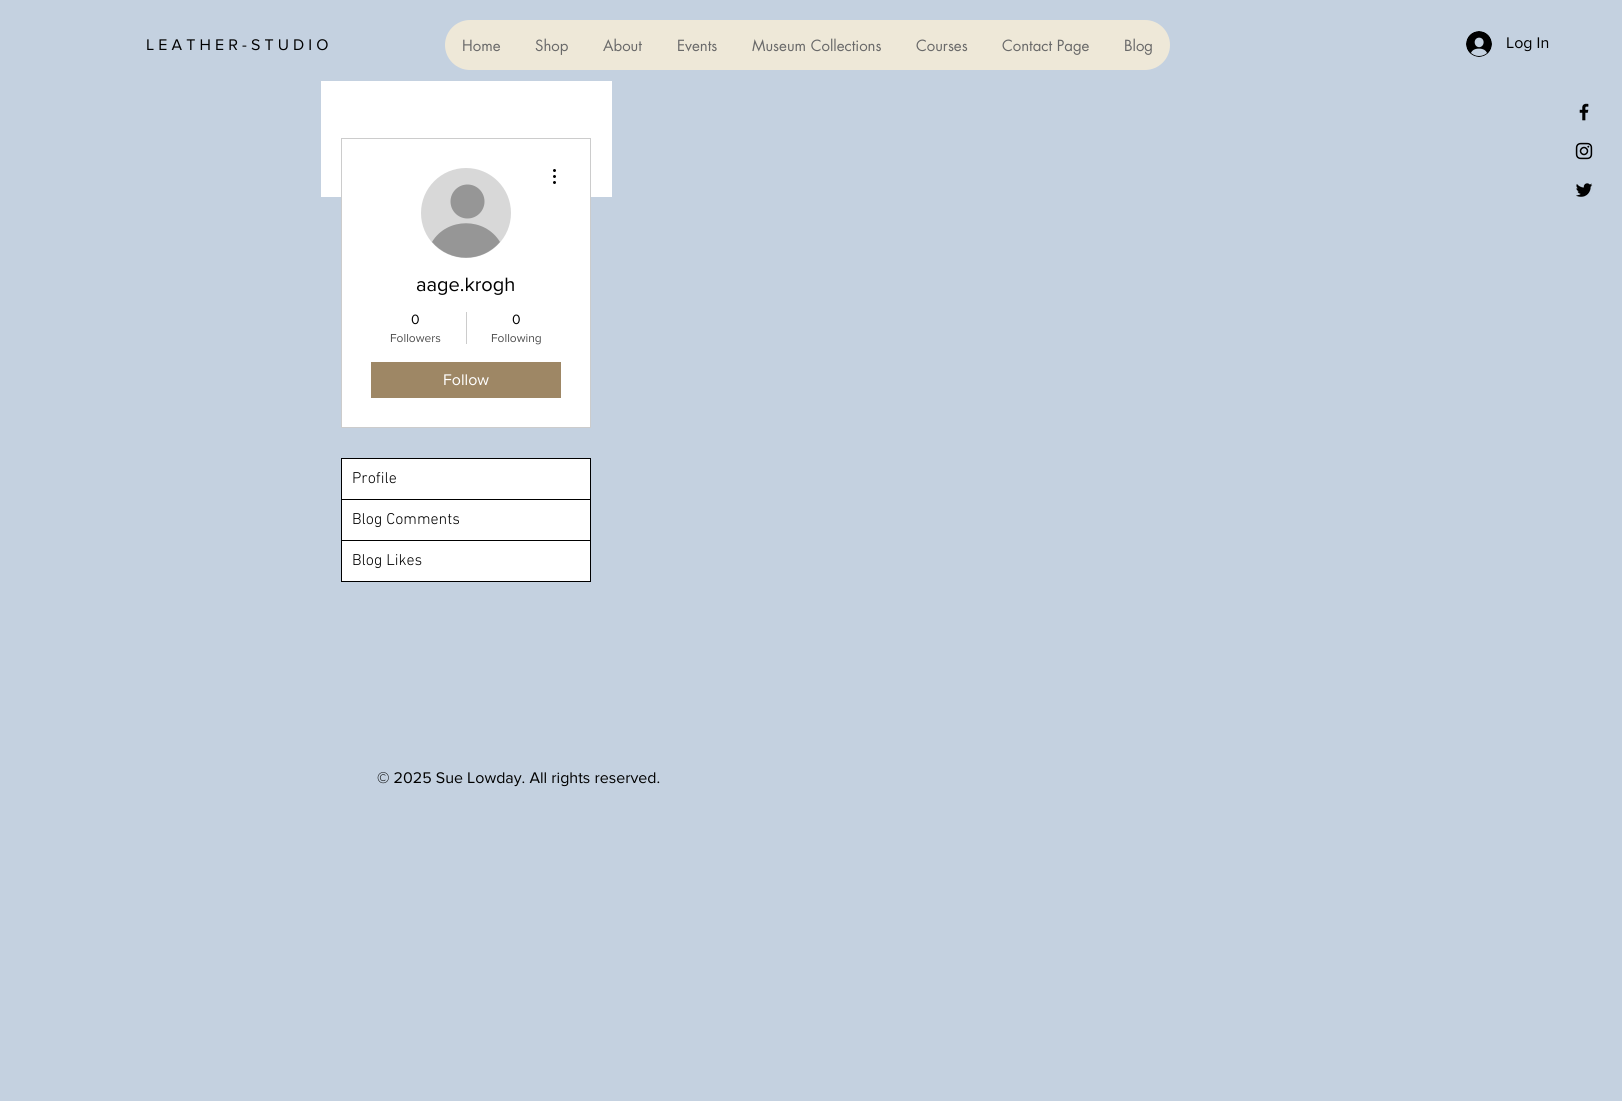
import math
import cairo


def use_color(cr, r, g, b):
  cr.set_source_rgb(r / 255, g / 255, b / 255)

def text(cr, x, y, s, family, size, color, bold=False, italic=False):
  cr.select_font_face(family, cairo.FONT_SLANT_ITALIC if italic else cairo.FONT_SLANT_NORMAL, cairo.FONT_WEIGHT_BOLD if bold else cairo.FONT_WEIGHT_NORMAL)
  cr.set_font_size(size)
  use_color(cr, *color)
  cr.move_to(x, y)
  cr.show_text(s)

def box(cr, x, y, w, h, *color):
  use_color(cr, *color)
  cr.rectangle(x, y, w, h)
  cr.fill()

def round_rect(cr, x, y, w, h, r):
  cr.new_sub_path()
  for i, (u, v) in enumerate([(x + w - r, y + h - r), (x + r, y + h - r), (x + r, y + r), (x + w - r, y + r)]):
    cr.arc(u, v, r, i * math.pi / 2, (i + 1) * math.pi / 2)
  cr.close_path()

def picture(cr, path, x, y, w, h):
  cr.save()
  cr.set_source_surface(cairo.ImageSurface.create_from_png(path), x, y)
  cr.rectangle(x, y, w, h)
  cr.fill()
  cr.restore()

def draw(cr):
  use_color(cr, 196, 209, 224)
  cr.paint()
  box(cr, 321, 81, 291, 116, 255, 255, 255)
  box(cr, 342, 197, 248, 230, 255, 255, 255)
  cr.rectangle(341.5, 138.5, 249, 289)
  use_color(cr, 204, 204, 204)
  cr.set_line_width(1)
  cr.stroke()
  use_color(cr, 216, 216, 216)
  cr.arc(466, 213, 45, 0, 2 * math.pi)
  cr.fill()
  use_color(cr, 150, 150, 150)
  cr.arc(467.5, 201.5, 17, 0, 2 * math.pi)
  cr.fill()
  cr.new_path()
  cr.move_to(500, 242)
  cr.curve_to(482, 263, 450, 263, 432, 242)
  cr.curve_to(447, 217, 485, 217, 500, 242)
  cr.close_path()
  cr.fill()
  picture(cr, "img_01.png", 553, 169, 3, 15)
  box(cr, 466, 312, 1, 32, 204, 204, 204)
  box(cr, 371, 362, 190, 36, 158, 135, 101)
  cr.rectangle(341.5, 458.5, 249, 123)
  use_color(cr, 0, 0, 0)
  cr.stroke()
  box(cr, 342, 499, 248, 1, 0, 0, 0)
  box(cr, 342, 459, 248, 40, 255, 255, 255)
  box(cr, 342, 540, 248, 1, 0, 0, 0)
  box(cr, 342, 500, 248, 40, 255, 255, 255)
  box(cr, 342, 541, 248, 40, 255, 255, 255)
  use_color(cr, 238, 232, 216)
  round_rect(cr, 445, 20, 725, 50, 25)
  cr.fill()
  picture(cr, "img_02.png", 1466, 31, 26, 26)
  picture(cr, "img_03.png", 1579, 103, 10, 18)
  picture(cr, "img_04.png", 1575, 142, 18, 18)
  picture(cr, "img_05.png", 1576, 183, 17, 14)
  text(cr, 146, 50, "L E A T H E R - S T U D I O", "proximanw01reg", 16, (0, 0, 0))
  text(cr, 416, 291, "aage.krogh", "proximanw01reg", 20, (0, 0, 0))
  text(cr, 411, 324, "0", "proximanw01reg", 14, (0, 0, 0))
  text(cr, 390, 342, "Followers", "proximanw01reg", 12, (77, 77, 77))
  text(cr, 512, 324, "0", "proximanw01reg", 14, (0, 0, 0))
  text(cr, 491, 342, "Following", "proximanw01reg", 12, (77, 77, 77))
  text(cr, 443, 385, "Follow", "proximanw01reg", 16, (255, 255, 255))
  text(cr, 352, 483, "Profile", "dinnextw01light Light", 16, (0, 0, 0))
  text(cr, 352, 524, "Blog Comments", "dinnextw01light Light", 16, (0, 0, 0))
  text(cr, 352, 565, "Blog Likes", "dinnextw01light Light", 16, (0, 0, 0))
  text(cr, 462, 51, "Home", "futura", 15, (105, 105, 105))
  text(cr, 535, 51, "Shop", "futura", 15, (105, 105, 105))
  text(cr, 603, 51, "About", "futura", 15, (105, 105, 105))
  text(cr, 677, 51, "Events", "futura", 15, (105, 105, 105))
  text(cr, 752, 51, "Museum Collections", "futura", 15, (105, 105, 105))
  text(cr, 916, 51, "Courses", "futura", 15, (105, 105, 105))
  text(cr, 1002, 51, "Contact Page", "futura", 15, (105, 105, 105))
  text(cr, 1124, 51, "Blog", "futura", 15, (105, 105, 105))
  text(cr, 1506, 48, "Log In", "proximanw01reg", 16, (0, 0, 0))
  text(cr, 377, 783, "© 2025 Sue Lowday. All rights reserved.", "proximanw01reg", 16, (0, 0, 0))


surface = cairo.ImageSurface(cairo.FORMAT_RGB24, 1622, 1101)
cr = cairo.Context(surface)
options = cairo.FontOptions()
options.set_hint_metrics(cairo.HINT_METRICS_OFF)
options.set_hint_style(cairo.HINT_STYLE_NONE)
cr.set_font_options(options)
cr.set_miter_limit(4)
draw(cr)
surface.write_to_png("out.png")
